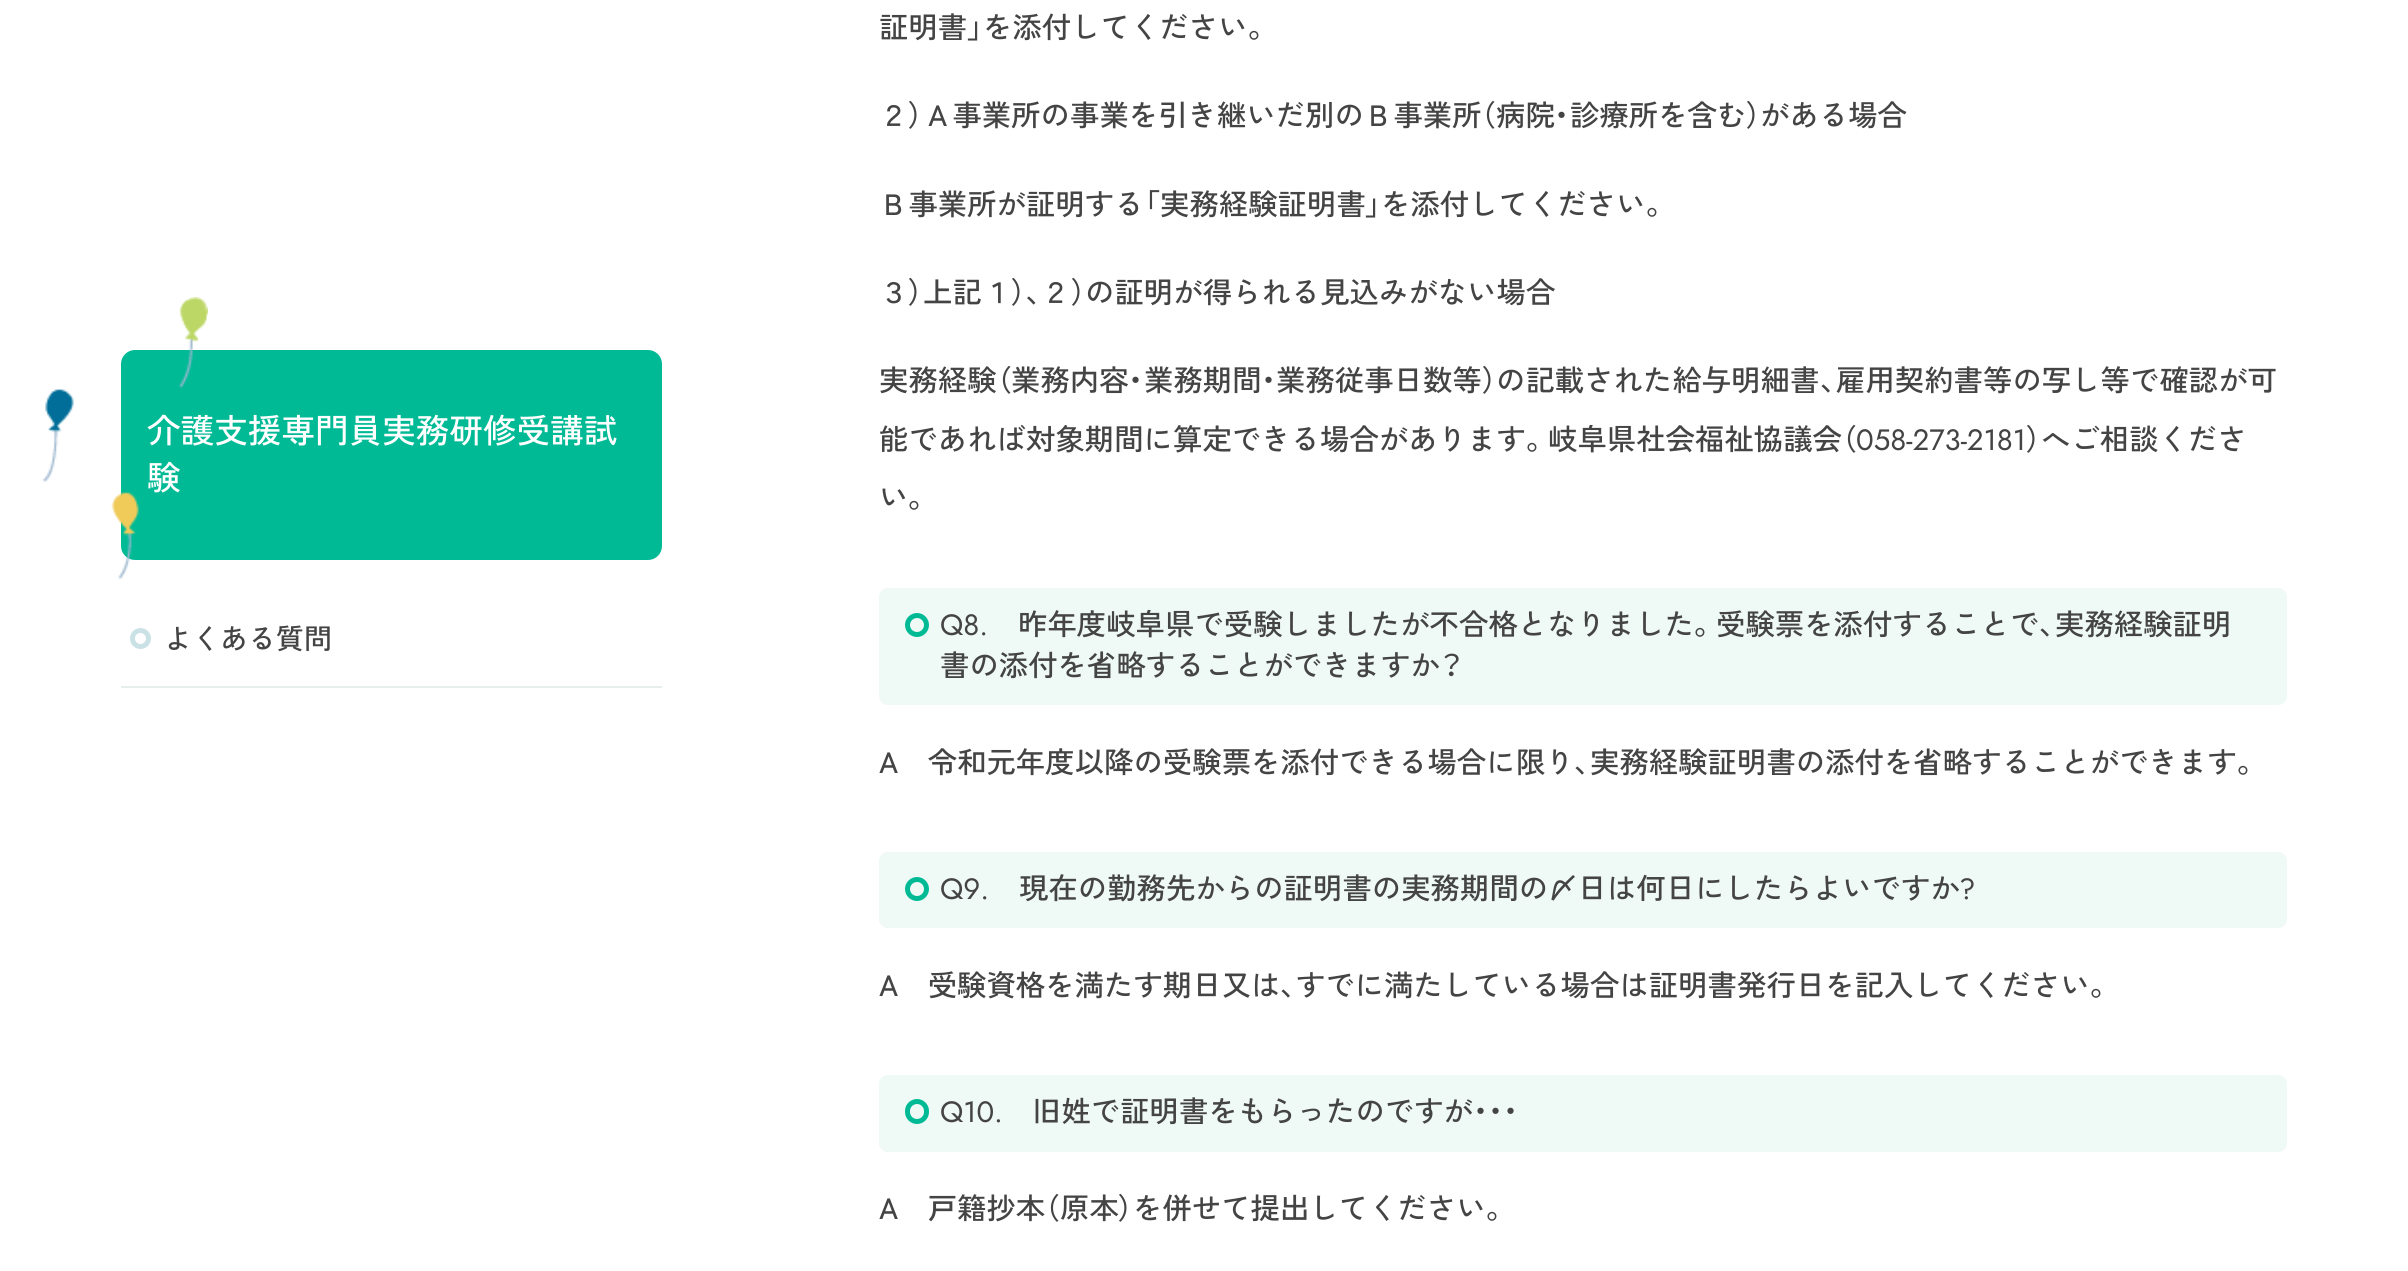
import math
import cairo


def use_color(cr, r, g, b):
  cr.set_source_rgb(r / 255, g / 255, b / 255)

def text(cr, x, y, s, family, size, color, bold=False, italic=False):
  cr.select_font_face(family, cairo.FONT_SLANT_ITALIC if italic else cairo.FONT_SLANT_NORMAL, cairo.FONT_WEIGHT_BOLD if bold else cairo.FONT_WEIGHT_NORMAL)
  cr.set_font_size(size)
  use_color(cr, *color)
  cr.move_to(x, y)
  cr.show_text(s)

def box(cr, x, y, w, h, *color):
  use_color(cr, *color)
  cr.rectangle(x, y, w, h)
  cr.fill()

def round_rect(cr, x, y, w, h, r):
  cr.new_sub_path()
  for i, (u, v) in enumerate([(x + w - r, y + h - r), (x + r, y + h - r), (x + r, y + r), (x + w - r, y + r)]):
    cr.arc(u, v, r, i * math.pi / 2, (i + 1) * math.pi / 2)
  cr.close_path()

def picture(cr, path, x, y, w, h):
  cr.save()
  cr.set_source_surface(cairo.ImageSurface.create_from_png(path), x, y)
  cr.rectangle(x, y, w, h)
  cr.fill()
  cr.restore()

def draw(cr):
  use_color(cr, 255, 255, 255)
  cr.paint()
  use_color(cr, 0, 186, 150)
  round_rect(cr, 121, 350, 541, 210, 14)
  cr.fill()
  box(cr, 121, 686, 541, 2, 230, 239, 235)
  cr.arc(140.5, 638.5, 8, 0, 2 * math.pi)
  use_color(cr, 202, 225, 229)
  cr.set_line_width(5)
  cr.stroke()
  use_color(cr, 239, 249, 246)
  round_rect(cr, 879, 588, 1408, 117, 9)
  cr.fill()
  cr.arc(917, 625, 9.5, 0, 2 * math.pi)
  use_color(cr, 0, 186, 150)
  cr.stroke()
  use_color(cr, 239, 249, 246)
  round_rect(cr, 879, 852, 1408, 76, 9)
  cr.fill()
  cr.arc(917, 889, 9.5, 0, 2 * math.pi)
  use_color(cr, 0, 186, 150)
  cr.stroke()
  use_color(cr, 239, 249, 246)
  round_rect(cr, 879, 1075, 1408, 77, 9)
  cr.fill()
  round_rect(cr, 907.5, 1101.5, 19, 20, 9.5)
  use_color(cr, 0, 186, 150)
  cr.stroke()
  text(cr, 147, 443, "介護支援専門員実務研修受講試", "Zen Kaku Gothic New Medium", 33.6, (255, 255, 255))
  text(cr, 147, 490, "験", "Zen Kaku Gothic New Medium", 33.6, (255, 255, 255))
  picture(cr, "img_01.png", 42, 297, 166, 283)
  text(cr, 164, 649, "よくある質問", "Zen Kaku Gothic New Medium", 28, (68, 68, 68))
  text(cr, 879, 38, "証明書", "Zen Kaku Gothic New Medium", 29.4, (68, 68, 68))
  text(cr, 967, 38, "」", "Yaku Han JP", 29.4, (68, 68, 68))
  text(cr, 983, 38, "を添付してください", "Zen Kaku Gothic New Medium", 29.4, (68, 68, 68))
  text(cr, 1248, 38, "。", "Yaku Han JP", 29.4, (68, 68, 68))
  text(cr, 879, 126, "２", "Zen Kaku Gothic New Medium", 29.4, (68, 68, 68))
  text(cr, 908, 126, "）", "Yaku Han JP", 29.4, (68, 68, 68))
  text(cr, 923, 126, "Ａ事業所の事業を引き継いだ別のＢ事業所", "Zen Kaku Gothic New Medium", 29.4, (68, 68, 68))
  text(cr, 1481, 126, "（", "Yaku Han JP", 29.4, (68, 68, 68))
  text(cr, 1496, 126, "病院", "Zen Kaku Gothic New Medium", 29.4, (68, 68, 68))
  text(cr, 1554, 126, "・", "Yaku Han JP", 29.4, (68, 68, 68))
  text(cr, 1570, 126, "診療所を含む", "Zen Kaku Gothic New Medium", 29.4, (68, 68, 68))
  text(cr, 1746, 126, "）", "Yaku Han JP", 29.4, (68, 68, 68))
  text(cr, 1760, 126, "がある場合", "Zen Kaku Gothic New Medium", 29.4, (68, 68, 68))
  text(cr, 879, 215, "Ｂ事業所が証明する", "Zen Kaku Gothic New Medium", 29.4, (68, 68, 68))
  text(cr, 1144, 215, "「", "Yaku Han JP", 29.4, (68, 68, 68))
  text(cr, 1160, 215, "実務経験証明書", "Zen Kaku Gothic New Medium", 29.4, (68, 68, 68))
  text(cr, 1365, 215, "」", "Yaku Han JP", 29.4, (68, 68, 68))
  text(cr, 1381, 215, "を添付してください", "Zen Kaku Gothic New Medium", 29.4, (68, 68, 68))
  text(cr, 1646, 215, "。", "Yaku Han JP", 29.4, (68, 68, 68))
  text(cr, 879, 303, "３", "Zen Kaku Gothic New Medium", 29.4, (68, 68, 68))
  text(cr, 908, 303, "）", "Yaku Han JP", 29.4, (68, 68, 68))
  text(cr, 923, 303, "上記１", "Zen Kaku Gothic New Medium", 29.4, (68, 68, 68))
  text(cr, 1011, 303, "）、", "Yaku Han JP", 29.4, (68, 68, 68))
  text(cr, 1041, 303, "２", "Zen Kaku Gothic New Medium", 29.4, (68, 68, 68))
  text(cr, 1071, 303, "）", "Yaku Han JP", 29.4, (68, 68, 68))
  text(cr, 1085, 303, "の証明が得られる見込みがない場合", "Zen Kaku Gothic New Medium", 29.4, (68, 68, 68))
  text(cr, 879, 391, "実務経験", "Zen Kaku Gothic New Medium", 29.4, (68, 68, 68))
  text(cr, 997, 391, "（", "Yaku Han JP", 29.4, (68, 68, 68))
  text(cr, 1011, 391, "業務内容", "Zen Kaku Gothic New Medium", 29.4, (68, 68, 68))
  text(cr, 1128, 391, "・", "Yaku Han JP", 29.4, (68, 68, 68))
  text(cr, 1144, 391, "業務期間", "Zen Kaku Gothic New Medium", 29.4, (68, 68, 68))
  text(cr, 1261, 391, "・", "Yaku Han JP", 29.4, (68, 68, 68))
  text(cr, 1276, 391, "業務従事日数等", "Zen Kaku Gothic New Medium", 29.4, (68, 68, 68))
  text(cr, 1482, 391, "）", "Yaku Han JP", 29.4, (68, 68, 68))
  text(cr, 1496, 391, "の記載された給与明細書", "Zen Kaku Gothic New Medium", 29.4, (68, 68, 68))
  text(cr, 1836, 391, "雇用契約書等の写し等で確認が可", "Zen Kaku Gothic New Medium", 29.4, (68, 68, 68))
  text(cr, 1820, 391, "、", "Yaku Han JP", 29.4, (68, 68, 68))
  text(cr, 879, 450, "能であれば対象期間に算定できる場合があります", "Zen Kaku Gothic New Medium", 29.4, (68, 68, 68))
  text(cr, 1526, 450, "。", "Yaku Han JP", 29.4, (68, 68, 68))
  text(cr, 1548, 450, "岐阜県社会福祉協議会", "Zen Kaku Gothic New Medium", 29.4, (68, 68, 68))
  text(cr, 1842, 450, "（", "Yaku Han JP", 29.4, (68, 68, 68))
  text(cr, 1856, 450, "058-273-2181", "Jost", 29.4, (68, 68, 68))
  text(cr, 2026, 450, "）", "Yaku Han JP", 29.4, (68, 68, 68))
  text(cr, 2041, 450, "へご相談くださ", "Zen Kaku Gothic New Medium", 29.4, (68, 68, 68))
  text(cr, 879, 508, "い", "Zen Kaku Gothic New Medium", 29.4, (68, 68, 68))
  text(cr, 908, 508, "。", "Yaku Han JP", 29.4, (68, 68, 68))
  text(cr, 940, 635, "Q8.", "Jost", 29.4, (68, 68, 68))
  text(cr, 1018, 635, "昨年度岐阜県で受験しましたが不合格となりました", "Zen Kaku Gothic New Medium", 29.4, (68, 68, 68))
  text(cr, 1694, 635, "。", "Yaku Han JP", 29.4, (68, 68, 68))
  text(cr, 1716, 635, "受験票を添付することで", "Zen Kaku Gothic New Medium", 29.4, (68, 68, 68))
  text(cr, 2039, 635, "、", "Yaku Han JP", 29.4, (68, 68, 68))
  text(cr, 2055, 635, "実務経験証明", "Zen Kaku Gothic New Medium", 29.4, (68, 68, 68))
  text(cr, 940, 676, "書の添付を省略することができますか", "Zen Kaku Gothic New Medium", 29.4, (68, 68, 68))
  text(cr, 1440, 676, "？", "Yaku Han JP", 29.4, (68, 68, 68))
  text(cr, 879, 773, "A　令和元年度以降の受験票を添付できる場合に限り", "Zen Kaku Gothic New Medium", 29.4, (68, 68, 68))
  text(cr, 1574, 773, "、", "Yaku Han JP", 29.4, (68, 68, 68))
  text(cr, 1590, 773, "実務経験証明書の添付を省略することができます", "Zen Kaku Gothic New Medium", 29.4, (68, 68, 68))
  text(cr, 2237, 773, "。", "Yaku Han JP", 29.4, (68, 68, 68))
  text(cr, 940, 899, "Q9.", "Jost", 29.4, (68, 68, 68))
  text(cr, 1019, 899, "現在の勤務先からの証明書の実務期間の〆日は何日にしたらよいですか", "Zen Kaku Gothic New Medium", 29.4, (68, 68, 68))
  text(cr, 1959, 899, "?", "Jost", 29.4, (68, 68, 68))
  text(cr, 879, 996, "A　受験資格を満たす期日又は", "Zen Kaku Gothic New Medium", 29.4, (68, 68, 68))
  text(cr, 1280, 996, "、", "Yaku Han JP", 29.4, (68, 68, 68))
  text(cr, 1296, 996, "すでに満たしている場合は証明書発行日を記入してください", "Zen Kaku Gothic New Medium", 29.4, (68, 68, 68))
  text(cr, 2090, 996, "。", "Yaku Han JP", 29.4, (68, 68, 68))
  text(cr, 940, 1122, "Q10.", "Jost", 29.4, (68, 68, 68))
  text(cr, 1032, 1122, "旧姓で証明書をもらったのですが", "Zen Kaku Gothic New Medium", 29.4, (68, 68, 68))
  text(cr, 1473, 1122, "・・・", "Yaku Han JP", 29.4, (68, 68, 68))
  text(cr, 879, 1219, "A　戸籍抄本", "Zen Kaku Gothic New Medium", 29.4, (68, 68, 68))
  text(cr, 1045, 1219, "（", "Yaku Han JP", 29.4, (68, 68, 68))
  text(cr, 1060, 1219, "原本", "Zen Kaku Gothic New Medium", 29.4, (68, 68, 68))
  text(cr, 1118, 1219, "）", "Yaku Han JP", 29.4, (68, 68, 68))
  text(cr, 1133, 1219, "を併せて提出してください", "Zen Kaku Gothic New Medium", 29.4, (68, 68, 68))
  text(cr, 1486, 1219, "。", "Yaku Han JP", 29.4, (68, 68, 68))


surface = cairo.ImageSurface(cairo.FORMAT_RGB24, 2408, 1271)
cr = cairo.Context(surface)
options = cairo.FontOptions()
options.set_hint_metrics(cairo.HINT_METRICS_OFF)
options.set_hint_style(cairo.HINT_STYLE_NONE)
cr.set_font_options(options)
cr.set_miter_limit(4)
draw(cr)
surface.write_to_png("out.png")
